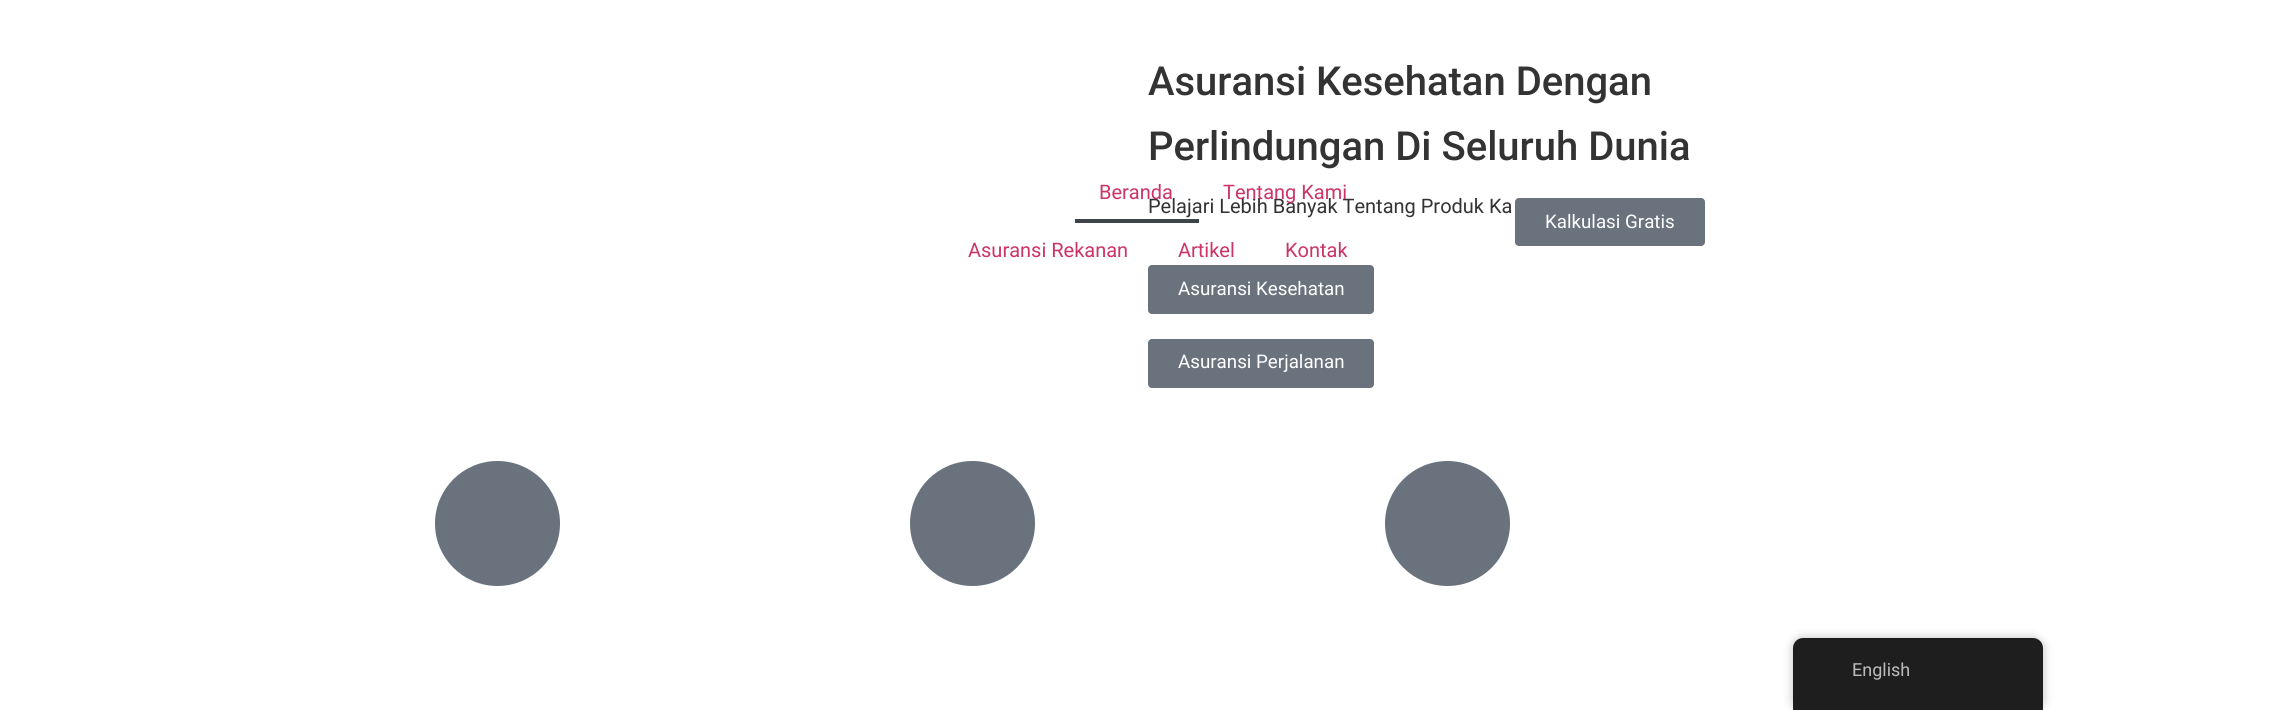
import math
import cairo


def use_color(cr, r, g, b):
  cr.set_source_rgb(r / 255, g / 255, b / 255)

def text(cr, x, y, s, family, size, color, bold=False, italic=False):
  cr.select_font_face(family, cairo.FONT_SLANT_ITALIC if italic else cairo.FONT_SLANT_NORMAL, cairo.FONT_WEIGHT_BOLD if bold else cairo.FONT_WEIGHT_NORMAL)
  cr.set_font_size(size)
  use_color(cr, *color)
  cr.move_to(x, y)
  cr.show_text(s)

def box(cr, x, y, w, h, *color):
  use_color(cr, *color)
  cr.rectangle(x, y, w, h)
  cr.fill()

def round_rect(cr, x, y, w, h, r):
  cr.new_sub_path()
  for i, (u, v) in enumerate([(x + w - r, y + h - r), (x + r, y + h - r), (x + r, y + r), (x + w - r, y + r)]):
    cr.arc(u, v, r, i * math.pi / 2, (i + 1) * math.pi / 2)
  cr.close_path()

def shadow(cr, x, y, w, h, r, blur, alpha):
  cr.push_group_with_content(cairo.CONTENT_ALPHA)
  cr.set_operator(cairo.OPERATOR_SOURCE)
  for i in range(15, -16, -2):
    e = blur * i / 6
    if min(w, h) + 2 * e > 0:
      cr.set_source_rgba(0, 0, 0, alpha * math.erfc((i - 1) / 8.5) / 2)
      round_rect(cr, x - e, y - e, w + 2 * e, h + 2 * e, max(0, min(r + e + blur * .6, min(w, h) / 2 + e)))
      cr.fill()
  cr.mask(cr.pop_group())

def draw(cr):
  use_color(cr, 255, 255, 255)
  cr.paint()
  use_color(cr, 105, 114, 125)
  round_rect(cr, 1148, 265, 226, 49, 4)
  cr.fill()
  round_rect(cr, 1148, 339, 226, 49, 4)
  cr.fill()
  cr.arc(497.5, 523.5, 62.5, 0, 2 * math.pi)
  cr.fill()
  cr.arc(972.5, 523.5, 62.5, 0, 2 * math.pi)
  cr.fill()
  cr.arc(1447.5, 523.5, 62.5, 0, 2 * math.pi)
  cr.fill()
  box(cr, 1075, 219, 124, 4, 63, 68, 75)
  use_color(cr, 105, 114, 125)
  round_rect(cr, 1515, 198, 190, 48, 4)
  cr.fill()
  use_color(cr, 0, 0, 0)
  shadow(cr, 1793, 638, 250, 72, 10, 5, 0.25)
  use_color(cr, 30, 30, 30)
  cr.new_path()
  cr.move_to(1803, 638)
  cr.line_to(2033, 638)
  cr.curve_to(2038.5, 638, 2043, 642.5, 2043, 648)
  cr.line_to(2043, 710)
  cr.line_to(1793, 710)
  cr.line_to(1793, 648)
  cr.curve_to(1793, 642.5, 1797.5, 638, 1803, 638)
  cr.close_path()
  cr.fill()
  text(cr, 1148, 95, "Asuransi Kesehatan Dengan", "Roboto Medium", 40, (51, 51, 51))
  text(cr, 1148, 160, "Perlindungan Di Seluruh Dunia", "Roboto Medium", 40, (51, 51, 51))
  text(cr, 1148, 213, "Pelajari Lebih Banyak Tentang Produk Ka", "Roboto", 20, (51, 51, 51))
  text(cr, 1178, 295, "Asuransi Kesehatan", "Roboto", 18.75, (255, 255, 255))
  text(cr, 1178, 368, "Asuransi Perjalanan", "Roboto", 18.75, (255, 255, 255))
  text(cr, 1099, 199, "Beranda", "Roboto", 20, (204, 51, 102))
  text(cr, 1223, 199, "Tentang Kami", "Roboto", 20, (204, 51, 102))
  text(cr, 968, 257, "Asuransi Rekanan", "Roboto", 20, (204, 51, 102))
  text(cr, 1178, 257, "Artikel", "Roboto", 20, (204, 51, 102))
  text(cr, 1285, 257, "Kontak", "Roboto", 20, (204, 51, 102))
  text(cr, 1545, 228, "Kalkulasi Gratis", "Roboto", 18.75, (255, 255, 255))
  text(cr, 1852, 676, "English", "Roboto", 18, (189, 189, 189))


surface = cairo.ImageSurface(cairo.FORMAT_RGB24, 2269, 710)
cr = cairo.Context(surface)
options = cairo.FontOptions()
options.set_hint_metrics(cairo.HINT_METRICS_OFF)
options.set_hint_style(cairo.HINT_STYLE_NONE)
cr.set_font_options(options)
cr.set_miter_limit(4)
draw(cr)
surface.write_to_png("out.png")
